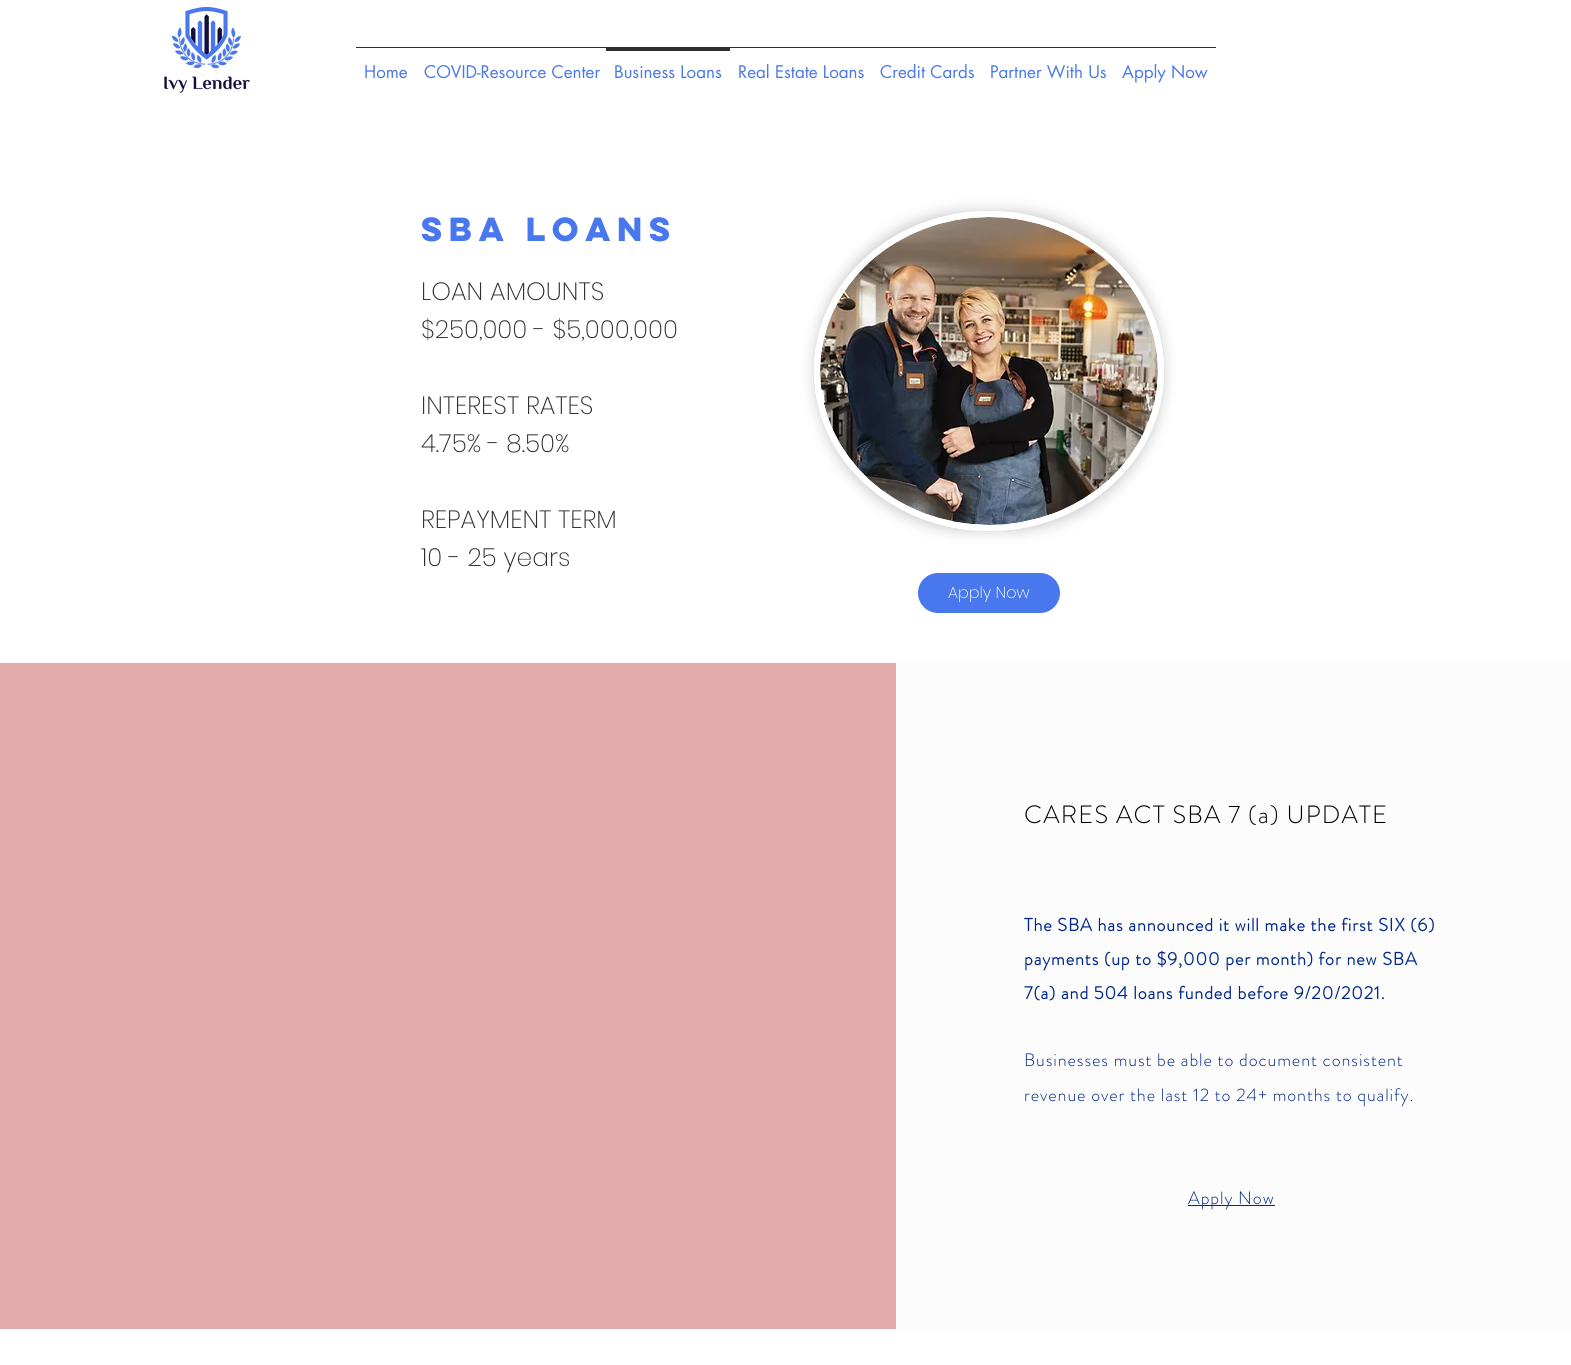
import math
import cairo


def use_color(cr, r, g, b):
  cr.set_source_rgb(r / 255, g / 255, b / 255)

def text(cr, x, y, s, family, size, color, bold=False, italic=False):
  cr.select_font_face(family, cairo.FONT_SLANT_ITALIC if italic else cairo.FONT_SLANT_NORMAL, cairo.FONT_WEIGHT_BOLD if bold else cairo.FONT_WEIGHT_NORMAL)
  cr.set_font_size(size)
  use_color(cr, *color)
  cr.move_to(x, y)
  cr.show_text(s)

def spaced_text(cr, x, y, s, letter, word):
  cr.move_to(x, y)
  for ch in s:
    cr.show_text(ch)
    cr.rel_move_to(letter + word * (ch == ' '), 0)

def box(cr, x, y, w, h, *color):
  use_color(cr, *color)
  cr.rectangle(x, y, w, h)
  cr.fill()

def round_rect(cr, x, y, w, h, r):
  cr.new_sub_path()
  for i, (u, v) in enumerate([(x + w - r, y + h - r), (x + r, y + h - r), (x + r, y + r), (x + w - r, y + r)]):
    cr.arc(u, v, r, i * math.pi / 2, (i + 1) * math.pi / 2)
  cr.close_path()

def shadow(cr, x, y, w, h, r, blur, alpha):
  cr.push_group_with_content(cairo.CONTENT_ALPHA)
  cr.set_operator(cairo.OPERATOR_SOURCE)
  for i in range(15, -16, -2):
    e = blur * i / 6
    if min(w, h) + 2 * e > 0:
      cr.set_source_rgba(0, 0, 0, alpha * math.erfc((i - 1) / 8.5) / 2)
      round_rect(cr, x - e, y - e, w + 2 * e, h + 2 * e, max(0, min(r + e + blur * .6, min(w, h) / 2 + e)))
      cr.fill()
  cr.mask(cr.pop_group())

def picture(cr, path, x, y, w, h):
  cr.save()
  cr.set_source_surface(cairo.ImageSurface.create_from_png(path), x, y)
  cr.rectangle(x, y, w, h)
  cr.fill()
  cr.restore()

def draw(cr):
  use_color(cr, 255, 255, 255)
  cr.paint()
  picture(cr, "img_01.png", 164, 7, 86, 86)
  box(cr, 356, 47, 250, 1, 47, 46, 46)
  box(cr, 606, 47, 124, 4, 47, 46, 46)
  box(cr, 730, 47, 486, 1, 47, 46, 46)
  use_color(cr, 0, 0, 0)
  shadow(cr, 814, 211, 350, 320, 160, 7, 0.2)
  use_color(cr, 255, 255, 255)
  cr.new_path()
  cr.move_to(989, 211)
  cr.curve_to(1085.5, 211, 1164, 282.5, 1164, 371)
  cr.curve_to(1164, 459.5, 1085.5, 531, 989, 531)
  cr.curve_to(892.5, 531, 814, 459.5, 814, 371)
  cr.curve_to(814, 282.5, 892.5, 211, 989, 211)
  cr.close_path()
  cr.fill()
  cr.new_path()
  cr.move_to(989, 214)
  cr.curve_to(1084, 214, 1161, 284.5, 1161, 371)
  cr.curve_to(1161, 457.5, 1084, 528, 989, 528)
  cr.curve_to(894, 528, 817, 457.5, 817, 371)
  cr.curve_to(817, 284.5, 894, 214, 989, 214)
  cr.close_path()
  cr.set_line_width(6)
  cr.stroke()
  picture(cr, "img_02.png", 820, 217, 338, 308)
  use_color(cr, 73, 119, 237)
  round_rect(cr, 918, 573, 142, 40, 20)
  cr.fill()
  box(cr, 0, 663, 896, 666, 226, 170, 170)
  box(cr, 896, 663, 675, 666, 252, 252, 252)
  box(cr, 1188, 1205, 87, 1, 1, 40, 137)
  text(cr, 364, 78, "Home", "futura", 17, (73, 119, 237))
  text(cr, 424, 78, "COVID-Resource Center", "futura", 17, (73, 119, 237))
  text(cr, 614, 78, "Business Loans", "futura", 17, (73, 119, 237))
  text(cr, 738, 78, "Real Estate Loans", "futura", 17, (73, 119, 237))
  text(cr, 880, 78, "Credit Cards", "futura", 17, (73, 119, 237))
  text(cr, 990, 78, "Partner With Us", "futura", 17, (73, 119, 237))
  text(cr, 1122, 78, "Apply Now", "futura", 17, (73, 119, 237))
  text(cr, 421, 241, "SBA Loans", "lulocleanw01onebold", 30, (73, 119, 237), bold=True)
  text(cr, 421, 300, "LOAN AMOUNTS", "Poppins ExtraLight", 25, (47, 46, 46))
  text(cr, 421, 338, "$250,000 - $5,000,000", "Poppins ExtraLight", 25, (47, 46, 46))
  text(cr, 421, 414, "INTEREST RATES", "Poppins ExtraLight", 25, (47, 46, 46))
  text(cr, 421, 452, "4.75% - 8.50%", "Poppins ExtraLight", 25, (47, 46, 46))
  text(cr, 421, 528, "REPAYMENT TERM", "Poppins ExtraLight", 25, (47, 46, 46))
  text(cr, 421, 566, "10 - 25 years", "Poppins ExtraLight", 25, (47, 46, 46))
  text(cr, 948, 598, "Apply Now", "Poppins ExtraLight", 16, (255, 255, 255))
  cr.select_font_face("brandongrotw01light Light")
  cr.set_font_size(25)
  use_color(cr, 0, 0, 0)
  spaced_text(cr, 1024, 823, "CARES ACT SBA 7 (a) UPDATE", 1.25, 0)
  cr.select_font_face("brandongrotw01light", cairo.FONT_SLANT_NORMAL, cairo.FONT_WEIGHT_BOLD)
  cr.set_font_size(18)
  use_color(cr, 1, 40, 137)
  spaced_text(cr, 1024, 931, "The SBA has announced it will make the first SIX (6)", 0.9, 0)
  spaced_text(cr, 1024, 965, "payments (up to $9,000 per month) for new SBA", 0.9, 0)
  spaced_text(cr, 1024, 999, "7(a) and 504 loans funded before 9/20/2021.", 0.9, 0)
  cr.select_font_face("brandongrotw01light Light")
  spaced_text(cr, 1024, 1066, "Businesses must be able to document consistent", 0.9, 0)
  spaced_text(cr, 1024, 1101, "revenue over the last 12 to 24+ months to qualify.", 0.9, 0)
  spaced_text(cr, 1188, 1204, "Apply Now", 0.9, 0)


surface = cairo.ImageSurface(cairo.FORMAT_RGB24, 1571, 1365)
cr = cairo.Context(surface)
options = cairo.FontOptions()
options.set_hint_metrics(cairo.HINT_METRICS_OFF)
options.set_hint_style(cairo.HINT_STYLE_NONE)
cr.set_font_options(options)
cr.set_miter_limit(4)
draw(cr)
surface.write_to_png("out.png")
